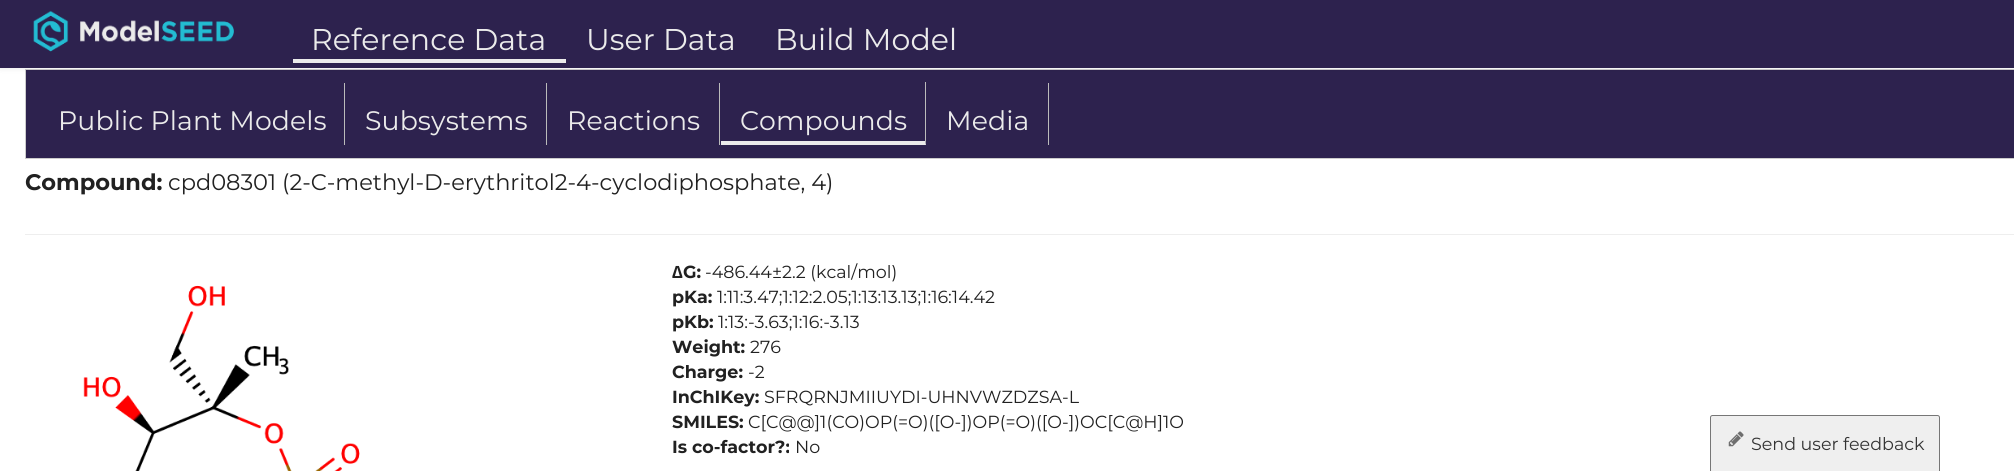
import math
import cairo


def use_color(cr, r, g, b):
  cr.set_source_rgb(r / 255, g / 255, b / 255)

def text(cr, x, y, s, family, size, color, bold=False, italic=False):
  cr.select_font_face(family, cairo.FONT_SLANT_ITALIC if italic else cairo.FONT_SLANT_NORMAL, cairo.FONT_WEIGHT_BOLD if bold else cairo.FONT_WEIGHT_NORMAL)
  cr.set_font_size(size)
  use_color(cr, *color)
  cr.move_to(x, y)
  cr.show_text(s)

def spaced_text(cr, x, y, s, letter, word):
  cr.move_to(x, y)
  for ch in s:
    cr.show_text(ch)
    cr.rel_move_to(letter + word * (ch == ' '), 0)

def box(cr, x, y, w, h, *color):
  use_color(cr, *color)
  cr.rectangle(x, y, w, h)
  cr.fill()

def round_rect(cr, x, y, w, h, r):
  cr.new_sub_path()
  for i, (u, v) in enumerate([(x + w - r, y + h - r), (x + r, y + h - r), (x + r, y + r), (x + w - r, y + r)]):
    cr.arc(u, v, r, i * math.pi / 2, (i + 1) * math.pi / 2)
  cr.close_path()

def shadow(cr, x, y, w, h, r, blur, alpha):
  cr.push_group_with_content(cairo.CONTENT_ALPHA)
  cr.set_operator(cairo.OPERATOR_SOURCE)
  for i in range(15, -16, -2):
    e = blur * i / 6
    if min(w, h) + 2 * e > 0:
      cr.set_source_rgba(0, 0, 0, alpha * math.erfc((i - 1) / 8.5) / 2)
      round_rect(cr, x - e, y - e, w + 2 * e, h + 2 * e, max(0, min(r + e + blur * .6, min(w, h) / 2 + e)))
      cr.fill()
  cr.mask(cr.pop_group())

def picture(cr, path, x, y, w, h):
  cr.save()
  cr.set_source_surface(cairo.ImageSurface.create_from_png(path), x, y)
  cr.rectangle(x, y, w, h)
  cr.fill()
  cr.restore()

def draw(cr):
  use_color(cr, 255, 255, 255)
  cr.paint()
  use_color(cr, 45, 34, 78)
  cr.rectangle(25.5, 69.5, 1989, 89)
  cr.fill_preserve()
  use_color(cr, 204, 204, 204)
  cr.set_line_width(1)
  cr.stroke()
  use_color(cr, 0, 0, 0)
  shadow(cr, 0, 5, 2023, 63, 0, 3, 0.1)
  box(cr, 0, 0, 2014, 68, 45, 34, 78)
  picture(cr, "img_01.png", 33, 10, 201, 42)
  box(cr, 293, 59, 273, 4, 235, 235, 235)
  box(cr, 344, 83, 1, 62, 187, 187, 187)
  box(cr, 546, 83, 1, 62, 187, 187, 187)
  box(cr, 719, 83, 1, 62, 187, 187, 187)
  cr.new_path()
  cr.move_to(926, 82)
  cr.line_to(926, 145)
  cr.line_to(925, 141)
  cr.line_to(925, 82)
  cr.close_path()
  cr.fill()
  use_color(cr, 235, 235, 235)
  cr.new_path()
  cr.move_to(926, 145)
  cr.line_to(721, 145)
  cr.line_to(721, 141)
  cr.line_to(925, 141)
  cr.close_path()
  cr.fill()
  box(cr, 1048, 83, 1, 62, 187, 187, 187)
  box(cr, 25, 234, 1989, 1, 238, 238, 238)
  picture(cr, "img_02.png", 83, 285, 277, 186)
  use_color(cr, 239, 239, 239)
  round_rect(cr, 1710.5, 415.5, 229, 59, 2)
  cr.fill_preserve()
  use_color(cr, 118, 118, 118)
  cr.stroke()
  picture(cr, "img_03.png", 1728, 431, 16, 16)
  cr.select_font_face("Montserrat")
  cr.set_font_size(30)
  use_color(cr, 235, 235, 235)
  spaced_text(cr, 311, 50, "Reference Data", 0.1, 0)
  spaced_text(cr, 586, 50, "User Data", 0.1, 0)
  spaced_text(cr, 775, 50, "Build Model", 0.1, 0)
  cr.set_font_size(26.75)
  spaced_text(cr, 58, 130, "Public Plant Models", 0.1, 0)
  spaced_text(cr, 365, 130, "Subsystems", 0.1, 0)
  spaced_text(cr, 567, 130, "Reactions", 0.1, 0)
  spaced_text(cr, 740, 130, "Compounds", 0.1, 0)
  spaced_text(cr, 946, 130, "Media", 0.1, 0)
  text(cr, 25, 190, "Compound:", "Montserrat", 22.5, (33, 33, 33), bold=True)
  text(cr, 168, 190, "cpd08301 (2-C-methyl-D-erythritol2-4-cyclodiphosphate, 4)", "Montserrat", 22.5, (33, 33, 33))
  text(cr, 672, 278, "∆", "Liberation Sans", 17.5, (33, 33, 33), bold=True)
  text(cr, 683, 278, "G:", "Montserrat", 17.5, (33, 33, 33), bold=True)
  text(cr, 705, 278, "-486.44±2.2 (kcal/mol)", "Montserrat", 17.5, (33, 33, 33))
  text(cr, 672, 303, "pKa:", "Montserrat", 17.5, (33, 33, 33), bold=True)
  text(cr, 717, 303, "1:11:3.47;1:12:2.05;1:13:13.13;1:16:14.42", "Montserrat", 17.5, (33, 33, 33))
  text(cr, 672, 328, "pKb:", "Montserrat", 17.5, (33, 33, 33), bold=True)
  text(cr, 718, 328, "1:13:-3.63;1:16:-3.13", "Montserrat", 17.5, (33, 33, 33))
  text(cr, 672, 353, "Weight:", "Montserrat", 17.5, (33, 33, 33), bold=True)
  text(cr, 750, 353, "276", "Montserrat", 17.5, (33, 33, 33))
  text(cr, 672, 378, "Charge:", "Montserrat", 17.5, (33, 33, 33), bold=True)
  text(cr, 748, 378, "-2", "Montserrat", 17.5, (33, 33, 33))
  text(cr, 672, 403, "InChIKey:", "Montserrat", 17.5, (33, 33, 33), bold=True)
  text(cr, 764, 403, "SFRQRNJMIIUYDI-UHNVWZDZSA-L", "Montserrat", 17.5, (33, 33, 33))
  text(cr, 672, 428, "SMILES:", "Montserrat", 17.5, (33, 33, 33), bold=True)
  text(cr, 748, 428, "C[C@@]1(CO)OP(=O)([O-])OP(=O)([O-])OC[C@H]1O", "Montserrat", 17.5, (33, 33, 33))
  text(cr, 672, 453, "Is co-factor?:", "Montserrat", 17.5, (33, 33, 33), bold=True)
  text(cr, 795, 453, "No", "Montserrat", 17.5, (33, 33, 33))
  text(cr, 1751, 450, "Send user feedback", "Montserrat", 17.5, (51, 51, 51))


surface = cairo.ImageSurface(cairo.FORMAT_RGB24, 2014, 471)
cr = cairo.Context(surface)
options = cairo.FontOptions()
options.set_hint_metrics(cairo.HINT_METRICS_OFF)
options.set_hint_style(cairo.HINT_STYLE_NONE)
cr.set_font_options(options)
cr.set_miter_limit(4)
draw(cr)
surface.write_to_png("out.png")
